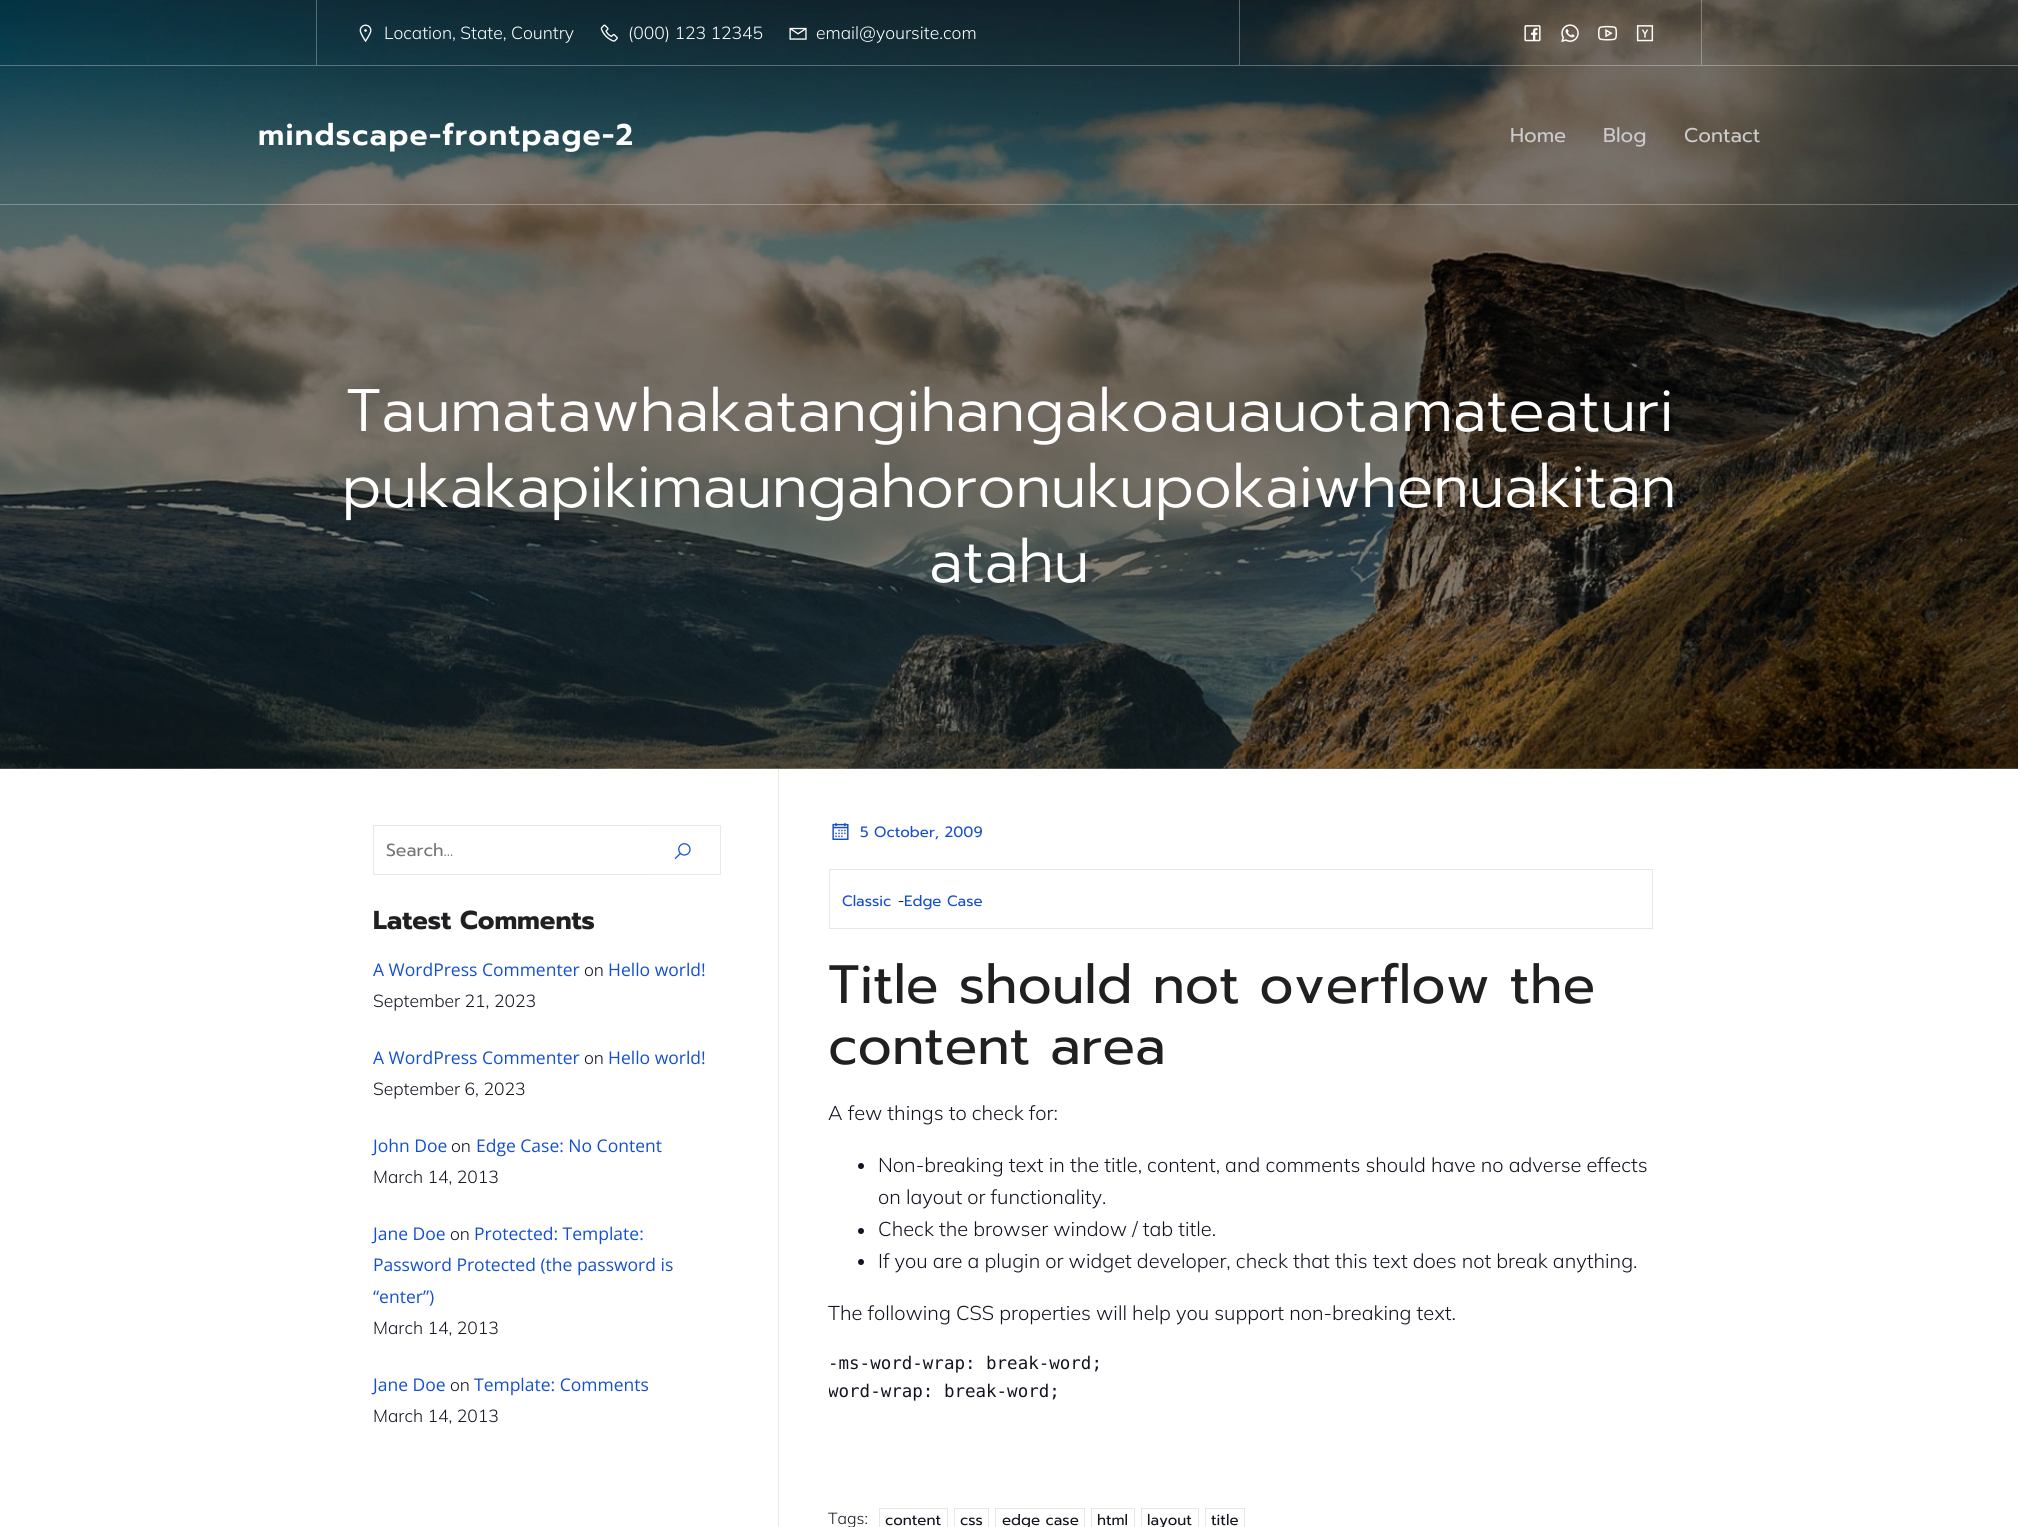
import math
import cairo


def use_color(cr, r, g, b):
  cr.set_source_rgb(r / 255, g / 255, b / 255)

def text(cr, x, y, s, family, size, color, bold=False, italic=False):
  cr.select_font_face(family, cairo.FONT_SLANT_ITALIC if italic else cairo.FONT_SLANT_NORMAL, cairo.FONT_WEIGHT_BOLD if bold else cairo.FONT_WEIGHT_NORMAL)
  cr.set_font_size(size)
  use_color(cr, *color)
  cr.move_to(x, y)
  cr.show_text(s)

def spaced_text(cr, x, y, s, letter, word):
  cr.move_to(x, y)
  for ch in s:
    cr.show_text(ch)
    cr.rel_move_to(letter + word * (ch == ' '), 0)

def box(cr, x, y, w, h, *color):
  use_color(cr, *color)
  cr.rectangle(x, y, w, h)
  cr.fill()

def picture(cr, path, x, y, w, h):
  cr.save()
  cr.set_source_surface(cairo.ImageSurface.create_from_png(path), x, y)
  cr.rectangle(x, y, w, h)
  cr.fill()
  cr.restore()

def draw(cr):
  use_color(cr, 255, 255, 255)
  cr.paint()
  picture(cr, "img_09.png", 0, 768, 2018, 1)
  picture(cr, "img_08.png", 0, 0, 2018, 769)
  cr.set_source_rgba(1, 1, 1, 0.3)
  cr.rectangle(0, 65, 2018, 1)
  cr.fill()
  cr.rectangle(1239, 0, 1, 65)
  cr.fill()
  cr.rectangle(316, 0, 1, 65)
  cr.fill()
  picture(cr, "img_01.png", 359, 24, 13, 19)
  picture(cr, "img_02.png", 600, 24, 18, 18)
  picture(cr, "img_03.png", 789, 27, 18, 13)
  cr.rectangle(1701, 0, 1, 65)
  cr.fill()
  picture(cr, "img_04.png", 1524, 25, 17, 17)
  picture(cr, "img_05.png", 1561, 24, 18, 18)
  picture(cr, "img_06.png", 1598, 25, 19, 16)
  picture(cr, "img_07.png", 1636, 25, 18, 17)
  cr.rectangle(0, 204, 2018, 1)
  cr.fill()
  box(cr, 778, 769, 1, 758, 230, 230, 230)
  cr.new_path()
  cr.move_to(372, 825)
  cr.line_to(646, 825)
  cr.line_to(646, 826)
  cr.line_to(374, 826)
  cr.close_path()
  cr.fill()
  cr.new_path()
  cr.move_to(646, 875)
  cr.line_to(372, 875)
  cr.line_to(374, 874)
  cr.line_to(646, 874)
  cr.close_path()
  cr.fill()
  cr.save()
  cr.rectangle(373, 825, 348, 50)
  cr.clip()
  cr.new_path()
  cr.move_to(372, 875)
  cr.line_to(372, 825)
  cr.line_to(374, 826)
  cr.line_to(374, 874)
  cr.close_path()
  cr.fill()
  cr.restore()
  use_color(cr, 233, 233, 233)
  cr.new_path()
  cr.move_to(646, 825)
  cr.line_to(721, 825)
  cr.line_to(720, 826)
  cr.line_to(646, 826)
  cr.close_path()
  cr.fill()
  cr.set_source_rgba(0.125, 0.125, 0.133, 0.1)
  cr.new_path()
  cr.move_to(721, 825)
  cr.line_to(721, 875)
  cr.line_to(720, 874)
  cr.line_to(720, 826)
  cr.close_path()
  cr.fill()
  cr.new_path()
  cr.move_to(721, 875)
  cr.line_to(646, 875)
  cr.line_to(646, 874)
  cr.line_to(720, 874)
  cr.close_path()
  cr.fill()
  picture(cr, "img_10.png", 674, 843, 17, 17)
  picture(cr, "img_11.png", 832, 823, 17, 17)
  cr.rectangle(829.5, 869.5, 823, 59)
  use_color(cr, 230, 230, 230)
  cr.set_line_width(1)
  cr.stroke()
  use_color(cr, 20, 20, 33)
  cr.arc(861, 1166, 3, 0, 2 * math.pi)
  cr.fill()
  cr.arc(861, 1231, 3, 0, 2 * math.pi)
  cr.fill()
  cr.arc(861, 1262, 3, 0, 2 * math.pi)
  cr.fill()
  cr.rectangle(879.5, 1508.5, 68, 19)
  use_color(cr, 230, 230, 230)
  cr.stroke()
  cr.rectangle(954.5, 1508.5, 34, 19)
  cr.stroke()
  cr.rectangle(995.5, 1508.5, 89, 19)
  cr.stroke()
  cr.rectangle(1091.5, 1508.5, 43, 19)
  cr.stroke()
  cr.rectangle(1141.5, 1508.5, 57, 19)
  cr.stroke()
  cr.rectangle(1205.5, 1508.5, 39, 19)
  cr.stroke()
  text(cr, 384, 39, "Location, State, Country", "Mulish Light", 17.5, (255, 255, 255))
  text(cr, 628, 39, "(000) 123 12345", "Mulish Light", 17.5, (255, 255, 255))
  text(cr, 816, 39, "email@yoursite.com", "Mulish Light", 17.5, (255, 255, 255))
  cr.select_font_face("Prompt SemiBold")
  cr.set_font_size(30)
  spaced_text(cr, 258, 145, "mindscape-frontpage-2", 1.25, 0)
  text(cr, 1510, 142, "Home", "Prompt", 20, (204, 204, 204))
  text(cr, 1603, 142, "Blog", "Prompt", 20, (204, 204, 204))
  text(cr, 1684, 142, "Contact", "Prompt", 20, (204, 204, 204))
  text(cr, 346, 431, "Taumatawhakatangihangakoauauotamateaturi", "Prompt Light", 60, (255, 255, 255))
  text(cr, 342, 507, "pukakapikimaungahoronukupokaiwhenuakitan", "Prompt Light", 60, (255, 255, 255))
  text(cr, 929, 582, "atahu", "Prompt Light", 60, (255, 255, 255))
  text(cr, 386, 856, "Search...", "Prompt", 17.5, (117, 117, 117))
  text(cr, 373, 929, "Latest Comments", "Prompt", 26, (32, 32, 34), bold=True)
  text(cr, 373, 976, "A WordPress Commenter", "Open Sans", 17.5, (20, 79, 209))
  text(cr, 584, 976, "on", "Mulish Light", 17.5, (20, 20, 33))
  text(cr, 608, 976, "Hello world!", "Open Sans", 17.5, (20, 79, 209))
  text(cr, 373, 1007, "September 21, 2023", "Mulish Light", 17.5, (20, 20, 33))
  text(cr, 373, 1064, "A WordPress Commenter", "Open Sans", 17.5, (20, 79, 209))
  text(cr, 584, 1064, "on", "Mulish Light", 17.5, (20, 20, 33))
  text(cr, 608, 1064, "Hello world!", "Open Sans", 17.5, (20, 79, 209))
  text(cr, 373, 1095, "September 6, 2023", "Mulish Light", 17.5, (20, 20, 33))
  text(cr, 373, 1152, "John Doe", "Open Sans", 17.5, (20, 79, 209))
  text(cr, 451, 1152, "on", "Mulish Light", 17.5, (20, 20, 33))
  text(cr, 476, 1152, "Edge Case: No Content", "Open Sans", 17.5, (20, 79, 209))
  text(cr, 373, 1183, "March 14, 2013", "Mulish Light", 17.5, (20, 20, 33))
  text(cr, 373, 1240, "Jane Doe", "Open Sans", 17.5, (20, 79, 209))
  text(cr, 450, 1240, "on", "Mulish Light", 17.5, (20, 20, 33))
  text(cr, 474, 1240, "Protected: Template:", "Open Sans", 17.5, (20, 79, 209))
  text(cr, 373, 1271, "Password Protected (the password is", "Open Sans", 17.5, (20, 79, 209))
  text(cr, 373, 1303, "“enter”)", "Open Sans", 17.5, (20, 79, 209))
  text(cr, 373, 1334, "March 14, 2013", "Mulish Light", 17.5, (20, 20, 33))
  text(cr, 373, 1391, "Jane Doe", "Open Sans", 17.5, (20, 79, 209))
  text(cr, 450, 1391, "on", "Mulish Light", 17.5, (20, 20, 33))
  text(cr, 474, 1391, "Template: Comments", "Open Sans", 17.5, (20, 79, 209))
  text(cr, 373, 1422, "March 14, 2013", "Mulish Light", 17.5, (20, 20, 33))
  text(cr, 860, 837, "5 October, 2009", "Prompt", 15, (20, 79, 209))
  text(cr, 842, 906, "Classic", "Prompt", 15, (20, 79, 209))
  text(cr, 898, 906, "-", "Prompt Light", 15, (20, 20, 33))
  text(cr, 904, 906, "Edge Case", "Prompt", 15, (20, 79, 209))
  text(cr, 828, 1003, "Title should not overflow the", "Prompt", 54, (32, 32, 34))
  text(cr, 828, 1064, "content area", "Prompt", 54, (32, 32, 34))
  text(cr, 828, 1120, "A few things to check for:", "Mulish Light", 20, (20, 20, 33))
  text(cr, 878, 1172, "Non-breaking text in the title, content, and comments should have no adverse effects", "Mulish Light", 20, (20, 20, 33))
  text(cr, 878, 1204, "on layout or functionality.", "Mulish Light", 20, (20, 20, 33))
  text(cr, 878, 1236, "Check the browser window / tab title.", "Mulish Light", 20, (20, 20, 33))
  text(cr, 878, 1268, "If you are a plugin or widget developer, check that this text does not break anything.", "Mulish Light", 20, (20, 20, 33))
  text(cr, 828, 1320, "The following CSS properties will help you support non-breaking text.", "Mulish Light", 20, (20, 20, 33))
  text(cr, 828, 1369, "-ms-word-wrap: break-word;", "DejaVu Sans Mono", 17.5, (20, 20, 33))
  cr.save()
  cr.rectangle(829, 1349, 824, 56)
  cr.clip()
  text(cr, 828, 1397, "word-wrap: break-word;", "DejaVu Sans Mono", 17.5, (20, 20, 33))
  cr.restore()
  text(cr, 828, 1524, "Tags:", "Mulish Light", 16, (20, 20, 33))
  text(cr, 885, 1525, "content", "Prompt", 15, (20, 20, 33))
  text(cr, 960, 1525, "css", "Prompt", 15, (20, 20, 33))
  text(cr, 1002, 1525, "edge case", "Prompt", 15, (20, 20, 33))
  text(cr, 1097, 1525, "html", "Prompt", 15, (20, 20, 33))
  text(cr, 1147, 1525, "layout", "Prompt", 15, (20, 20, 33))
  text(cr, 1211, 1525, "title", "Prompt", 15, (20, 20, 33))


surface = cairo.ImageSurface(cairo.FORMAT_RGB24, 2018, 1527)
cr = cairo.Context(surface)
options = cairo.FontOptions()
options.set_hint_metrics(cairo.HINT_METRICS_OFF)
options.set_hint_style(cairo.HINT_STYLE_NONE)
cr.set_font_options(options)
cr.set_miter_limit(4)
draw(cr)
surface.write_to_png("out.png")
